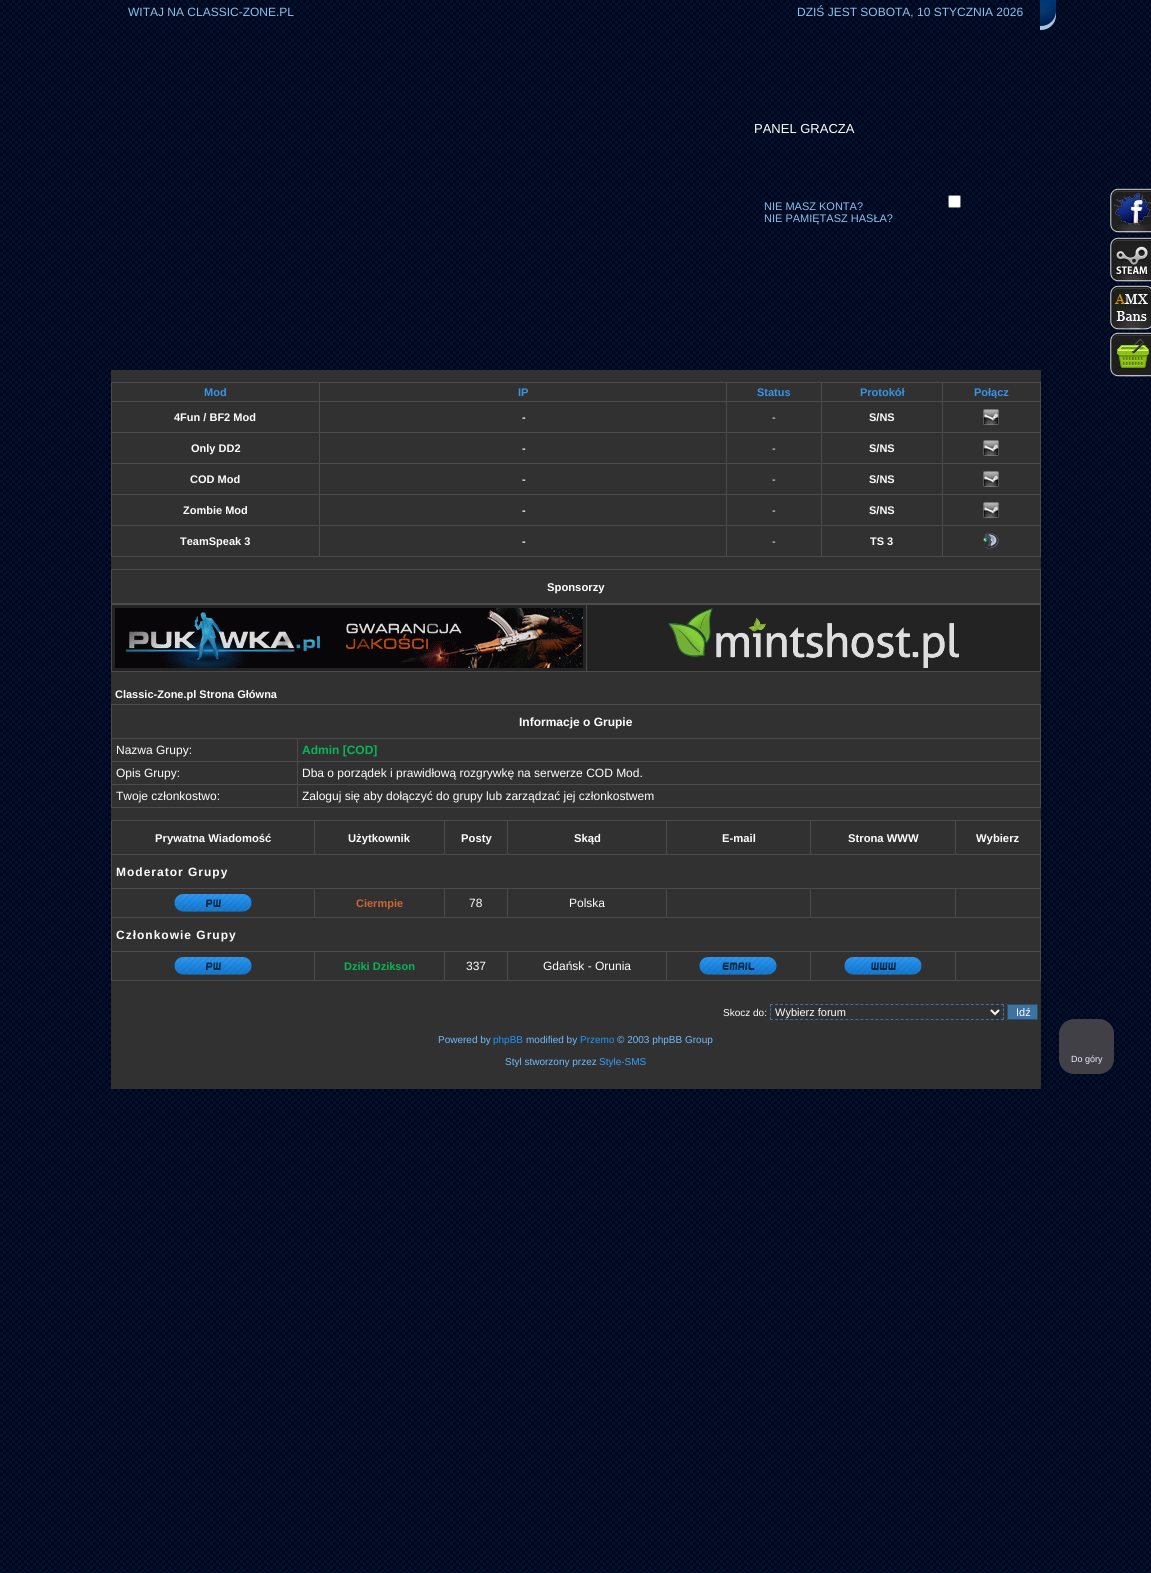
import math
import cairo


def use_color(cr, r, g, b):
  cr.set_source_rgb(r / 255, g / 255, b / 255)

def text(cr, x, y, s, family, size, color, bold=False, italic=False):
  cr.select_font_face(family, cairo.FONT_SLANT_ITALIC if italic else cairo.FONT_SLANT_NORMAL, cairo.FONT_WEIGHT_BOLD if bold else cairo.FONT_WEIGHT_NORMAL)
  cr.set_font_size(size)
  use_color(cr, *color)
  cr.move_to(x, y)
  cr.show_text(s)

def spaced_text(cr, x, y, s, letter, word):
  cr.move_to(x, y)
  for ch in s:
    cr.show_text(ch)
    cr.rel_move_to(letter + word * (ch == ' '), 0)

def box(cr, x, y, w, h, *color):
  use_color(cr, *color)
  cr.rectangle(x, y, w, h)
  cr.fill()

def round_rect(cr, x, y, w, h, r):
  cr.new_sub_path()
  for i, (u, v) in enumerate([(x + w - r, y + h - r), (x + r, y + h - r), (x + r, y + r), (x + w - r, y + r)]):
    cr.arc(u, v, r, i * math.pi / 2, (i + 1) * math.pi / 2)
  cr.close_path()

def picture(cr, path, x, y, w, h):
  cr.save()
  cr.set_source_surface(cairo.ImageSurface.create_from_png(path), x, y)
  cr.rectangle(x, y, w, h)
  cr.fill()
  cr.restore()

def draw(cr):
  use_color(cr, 255, 255, 255)
  cr.paint()
  picture(cr, "img_01.png", 0, 0, 1151, 1573)
  picture(cr, "img_02.png", 1040, 0, 16, 30)
  use_color(cr, 255, 255, 255)
  round_rect(cr, 948.5, 195.5, 12, 12, 1.5)
  cr.fill_preserve()
  use_color(cr, 118, 118, 118)
  cr.set_line_width(1)
  cr.stroke()
  picture(cr, "img_03.png", 1109, 188, 42, 45)
  picture(cr, "img_04.png", 1109, 237, 42, 45)
  picture(cr, "img_05.png", 1109, 285, 42, 45)
  picture(cr, "img_06.png", 1109, 332, 42, 45)
  box(cr, 111, 370, 930, 719, 49, 49, 49)
  box(cr, 111, 382, 930, 175, 75, 75, 75)
  box(cr, 112, 383, 207, 18, 49, 49, 49)
  box(cr, 320, 383, 406, 18, 49, 49, 49)
  box(cr, 727, 383, 94, 18, 49, 49, 49)
  box(cr, 822, 383, 120, 18, 49, 49, 49)
  box(cr, 943, 383, 97, 18, 49, 49, 49)
  box(cr, 112, 402, 207, 30, 49, 49, 49)
  box(cr, 320, 402, 406, 30, 49, 49, 49)
  box(cr, 727, 402, 94, 30, 49, 49, 49)
  box(cr, 822, 402, 120, 30, 49, 49, 49)
  box(cr, 943, 402, 97, 30, 49, 49, 49)
  picture(cr, "img_07.png", 983, 409, 16, 16)
  box(cr, 112, 433, 207, 30, 49, 49, 49)
  box(cr, 320, 433, 406, 30, 49, 49, 49)
  box(cr, 727, 433, 94, 30, 49, 49, 49)
  box(cr, 822, 433, 120, 30, 49, 49, 49)
  box(cr, 943, 433, 97, 30, 49, 49, 49)
  picture(cr, "img_07.png", 983, 440, 16, 16)
  box(cr, 112, 464, 207, 30, 49, 49, 49)
  box(cr, 320, 464, 406, 30, 49, 49, 49)
  box(cr, 727, 464, 94, 30, 49, 49, 49)
  box(cr, 822, 464, 120, 30, 49, 49, 49)
  box(cr, 943, 464, 97, 30, 49, 49, 49)
  picture(cr, "img_07.png", 983, 471, 16, 16)
  box(cr, 112, 495, 207, 30, 49, 49, 49)
  box(cr, 320, 495, 406, 30, 49, 49, 49)
  box(cr, 727, 495, 94, 30, 49, 49, 49)
  box(cr, 822, 495, 120, 30, 49, 49, 49)
  box(cr, 943, 495, 97, 30, 49, 49, 49)
  picture(cr, "img_07.png", 983, 502, 16, 16)
  box(cr, 112, 526, 207, 30, 49, 49, 49)
  box(cr, 320, 526, 406, 30, 49, 49, 49)
  box(cr, 727, 526, 94, 30, 49, 49, 49)
  box(cr, 822, 526, 120, 30, 49, 49, 49)
  box(cr, 943, 526, 97, 30, 49, 49, 49)
  picture(cr, "img_08.png", 983, 533, 16, 16)
  box(cr, 111, 569, 930, 103, 75, 75, 75)
  box(cr, 112, 570, 928, 33, 49, 49, 49)
  box(cr, 112, 605, 474, 66, 35, 35, 35)
  picture(cr, "img_09.png", 115, 608, 468, 60)
  box(cr, 587, 605, 453, 66, 35, 35, 35)
  picture(cr, "img_10.png", 668, 608, 291, 60)
  box(cr, 111, 704, 930, 104, 75, 75, 75)
  box(cr, 112, 705, 928, 33, 49, 49, 49)
  box(cr, 112, 739, 185, 22, 49, 49, 49)
  box(cr, 298, 739, 742, 22, 49, 49, 49)
  box(cr, 112, 762, 185, 22, 49, 49, 49)
  box(cr, 298, 762, 742, 22, 49, 49, 49)
  box(cr, 112, 785, 185, 22, 49, 49, 49)
  box(cr, 298, 785, 742, 22, 49, 49, 49)
  box(cr, 111, 820, 930, 161, 75, 75, 75)
  box(cr, 112, 821, 202, 33, 49, 49, 49)
  box(cr, 315, 821, 129, 33, 49, 49, 49)
  box(cr, 445, 821, 62, 33, 49, 49, 49)
  box(cr, 508, 821, 158, 33, 49, 49, 49)
  box(cr, 667, 821, 143, 33, 49, 49, 49)
  box(cr, 811, 821, 144, 33, 49, 49, 49)
  box(cr, 956, 821, 84, 33, 49, 49, 49)
  box(cr, 112, 855, 928, 33, 49, 49, 49)
  box(cr, 112, 889, 202, 28, 49, 49, 49)
  picture(cr, "img_11.png", 174, 894, 78, 18)
  box(cr, 315, 889, 129, 28, 49, 49, 49)
  box(cr, 445, 889, 62, 28, 49, 49, 49)
  box(cr, 508, 889, 158, 28, 49, 49, 49)
  box(cr, 667, 889, 143, 28, 49, 49, 49)
  box(cr, 811, 889, 144, 28, 49, 49, 49)
  box(cr, 956, 889, 84, 28, 49, 49, 49)
  box(cr, 112, 918, 928, 33, 49, 49, 49)
  box(cr, 112, 952, 202, 28, 49, 49, 49)
  picture(cr, "img_11.png", 174, 957, 78, 18)
  box(cr, 315, 952, 129, 28, 49, 49, 49)
  box(cr, 445, 952, 62, 28, 49, 49, 49)
  box(cr, 508, 952, 158, 28, 49, 49, 49)
  box(cr, 667, 952, 143, 28, 49, 49, 49)
  picture(cr, "img_12.png", 699, 957, 78, 18)
  box(cr, 811, 952, 144, 28, 49, 49, 49)
  picture(cr, "img_13.png", 844, 957, 78, 18)
  box(cr, 956, 952, 84, 28, 49, 49, 49)
  cr.new_path()
  cr.move_to(770, 1004.5)
  cr.line_to(1004, 1004.5)
  use_color(cr, 61, 115, 163)
  cr.set_dash([3, 2.02])
  cr.stroke()
  cr.new_path()
  cr.move_to(1003.5, 1004)
  cr.line_to(1003.5, 1020)
  cr.set_dash([3, 1.33])
  cr.stroke()
  cr.new_path()
  cr.move_to(770, 1019.5)
  cr.line_to(1004, 1019.5)
  cr.set_dash([3, 2.02])
  cr.stroke()
  cr.new_path()
  cr.move_to(770.5, 1004)
  cr.line_to(770.5, 1020)
  cr.set_dash([3, 1.33])
  cr.stroke()
  cr.new_path()
  cr.move_to(991, 1010)
  cr.line_to(995, 1014)
  cr.line_to(999, 1010)
  use_color(cr, 255, 255, 255)
  cr.set_line_width(2)
  cr.set_dash([])
  cr.stroke()
  use_color(cr, 61, 115, 163)
  cr.rectangle(1007.5, 1004.5, 30, 15)
  cr.fill_preserve()
  use_color(cr, 44, 78, 109)
  cr.set_line_width(1)
  cr.stroke()
  use_color(cr, 64, 64, 70)
  round_rect(cr, 1059, 1019, 55, 55, 15)
  cr.fill()
  text(cr, 128, 16, "WITAJ NA CLASSIC-ZONE.PL", "Liberation Sans", 12, (143, 192, 236))
  text(cr, 797, 16, "DZIŚ JEST SOBOTA, 10 STYCZNIA 2026", "Liberation Sans", 12, (143, 192, 236))
  text(cr, 754, 133, "PANEL GRACZA", "Liberation Sans", 13, (255, 255, 255))
  text(cr, 764, 210, "NIE MASZ KONTA?", "Liberation Sans", 11, (143, 192, 236))
  text(cr, 764, 222, "NIE PAMIĘTASZ HASŁA?", "Liberation Sans", 11, (143, 192, 236))
  text(cr, 204, 396, "Mod", "Liberation Sans", 11, (55, 148, 231), bold=True)
  text(cr, 518, 396, "IP", "Liberation Sans", 11, (55, 148, 231), bold=True)
  text(cr, 757, 396, "Status", "Liberation Sans", 11, (55, 148, 231), bold=True)
  text(cr, 860, 396, "Protokół", "Liberation Sans", 11, (55, 148, 231), bold=True)
  text(cr, 974, 396, "Połącz", "Liberation Sans", 11, (55, 148, 231), bold=True)
  text(cr, 174, 421, "4Fun / BF2 Mod", "Liberation Sans", 11, (255, 255, 255), bold=True)
  text(cr, 522, 421, "-", "Liberation Sans", 11, (238, 238, 238), bold=True)
  text(cr, 772, 421, "-", "Liberation Sans", 11, (255, 255, 255))
  text(cr, 869, 421, "S/NS", "Liberation Sans", 11, (255, 255, 255), bold=True)
  text(cr, 191, 452, "Only DD2", "Liberation Sans", 11, (255, 255, 255), bold=True)
  text(cr, 522, 452, "-", "Liberation Sans", 11, (238, 238, 238), bold=True)
  text(cr, 772, 452, "-", "Liberation Sans", 11, (255, 255, 255))
  text(cr, 869, 452, "S/NS", "Liberation Sans", 11, (255, 255, 255), bold=True)
  text(cr, 190, 483, "COD Mod", "Liberation Sans", 11, (255, 255, 255), bold=True)
  text(cr, 522, 483, "-", "Liberation Sans", 11, (238, 238, 238), bold=True)
  text(cr, 772, 483, "-", "Liberation Sans", 11, (255, 255, 255))
  text(cr, 869, 483, "S/NS", "Liberation Sans", 11, (255, 255, 255), bold=True)
  text(cr, 183, 514, "Zombie Mod", "Liberation Sans", 11, (255, 255, 255), bold=True)
  text(cr, 522, 514, "-", "Liberation Sans", 11, (238, 238, 238), bold=True)
  text(cr, 772, 514, "-", "Liberation Sans", 11, (255, 255, 255))
  text(cr, 869, 514, "S/NS", "Liberation Sans", 11, (255, 255, 255), bold=True)
  text(cr, 180, 545, "TeamSpeak 3", "Liberation Sans", 11, (255, 255, 255), bold=True)
  text(cr, 522, 545, "-", "Liberation Sans", 11, (238, 238, 238), bold=True)
  text(cr, 772, 545, "-", "Liberation Sans", 11, (255, 255, 255))
  text(cr, 870, 545, "TS 3", "Liberation Sans", 11, (255, 255, 255), bold=True)
  text(cr, 547, 591, "Sponsorzy", "Liberation Sans", 11.25, (255, 255, 255), bold=True)
  text(cr, 115, 698, "Classic-Zone.pl Strona Główna", "Liberation Sans", 11, (255, 255, 255), bold=True)
  text(cr, 519, 726, "Informacje o Grupie", "Liberation Sans", 12, (255, 255, 255), bold=True)
  text(cr, 116, 754, "Nazwa Grupy:", "Liberation Sans", 12, (255, 255, 255))
  text(cr, 302, 754, "Admin [COD]", "Liberation Sans", 12, (8, 181, 87), bold=True)
  text(cr, 116, 777, "Opis Grupy:", "Liberation Sans", 12, (255, 255, 255))
  text(cr, 302, 777, "Dba o porządek i prawidłową rozgrywkę na serwerze COD Mod.", "Liberation Sans", 12, (255, 255, 255))
  text(cr, 116, 800, "Twoje członkostwo:", "Liberation Sans", 12, (255, 255, 255))
  text(cr, 302, 800, "Zaloguj się aby dołączyć do grupy lub zarządzać jej członkostwem", "Liberation Sans", 12, (255, 255, 255))
  text(cr, 155, 842, "Prywatna Wiadomość", "Liberation Sans", 11.25, (255, 255, 255), bold=True)
  text(cr, 348, 842, "Użytkownik", "Liberation Sans", 11.25, (255, 255, 255), bold=True)
  text(cr, 461, 842, "Posty", "Liberation Sans", 11.25, (255, 255, 255), bold=True)
  text(cr, 574, 842, "Skąd", "Liberation Sans", 11.25, (255, 255, 255), bold=True)
  text(cr, 722, 842, "E-mail", "Liberation Sans", 11.25, (255, 255, 255), bold=True)
  text(cr, 848, 842, "Strona WWW", "Liberation Sans", 11.25, (255, 255, 255), bold=True)
  text(cr, 976, 842, "Wybierz", "Liberation Sans", 11.25, (255, 255, 255), bold=True)
  cr.set_font_size(12)
  spaced_text(cr, 116, 876, "Moderator Grupy", 1, 0)
  text(cr, 356, 907, "Ciermpie", "Liberation Sans", 11, (204, 102, 51), bold=True)
  text(cr, 469, 907, "78", "Liberation Sans", 12, (255, 255, 255))
  text(cr, 569, 907, "Polska", "Liberation Sans", 12, (255, 255, 255))
  cr.select_font_face("Liberation Sans", cairo.FONT_SLANT_NORMAL, cairo.FONT_WEIGHT_BOLD)
  spaced_text(cr, 116, 939, "Członkowie Grupy", 1, 0)
  text(cr, 344, 970, "Dziki Dzikson", "Liberation Sans", 11, (8, 181, 87), bold=True)
  text(cr, 466, 970, "337", "Liberation Sans", 12, (255, 255, 255))
  text(cr, 543, 970, "Gdańsk - Orunia", "Liberation Sans", 12, (255, 255, 255))
  text(cr, 723, 1016, "Skocz do:", "Liberation Sans", 10, (255, 255, 255))
  text(cr, 775, 1016, "Wybierz forum", "Liberation Sans", 11, (255, 255, 255))
  text(cr, 1016, 1016, "Idź", "Liberation Sans", 11, (255, 255, 255))
  text(cr, 438, 1043, "Powered by", "Liberation Sans", 10, (112, 188, 255))
  text(cr, 493, 1043, "phpBB", "Liberation Sans", 10, (32, 149, 253))
  text(cr, 526, 1043, "modified by", "Liberation Sans", 10, (112, 188, 255))
  text(cr, 580, 1043, "Przemo", "Liberation Sans", 10, (32, 149, 253))
  text(cr, 617, 1043, "© 2003 phpBB Group", "Liberation Sans", 10, (112, 188, 255))
  text(cr, 505, 1065, "Styl stworzony przez", "Liberation Sans", 10, (112, 188, 255))
  text(cr, 599, 1065, "Style-SMS", "Liberation Sans", 10, (51, 159, 255))
  text(cr, 1071, 1062, "Do góry", "Liberation Sans", 9, (238, 238, 255))


surface = cairo.ImageSurface(cairo.FORMAT_RGB24, 1151, 1573)
cr = cairo.Context(surface)
options = cairo.FontOptions()
options.set_hint_metrics(cairo.HINT_METRICS_OFF)
options.set_hint_style(cairo.HINT_STYLE_NONE)
cr.set_font_options(options)
cr.set_miter_limit(4)
draw(cr)
surface.write_to_png("out.png")
